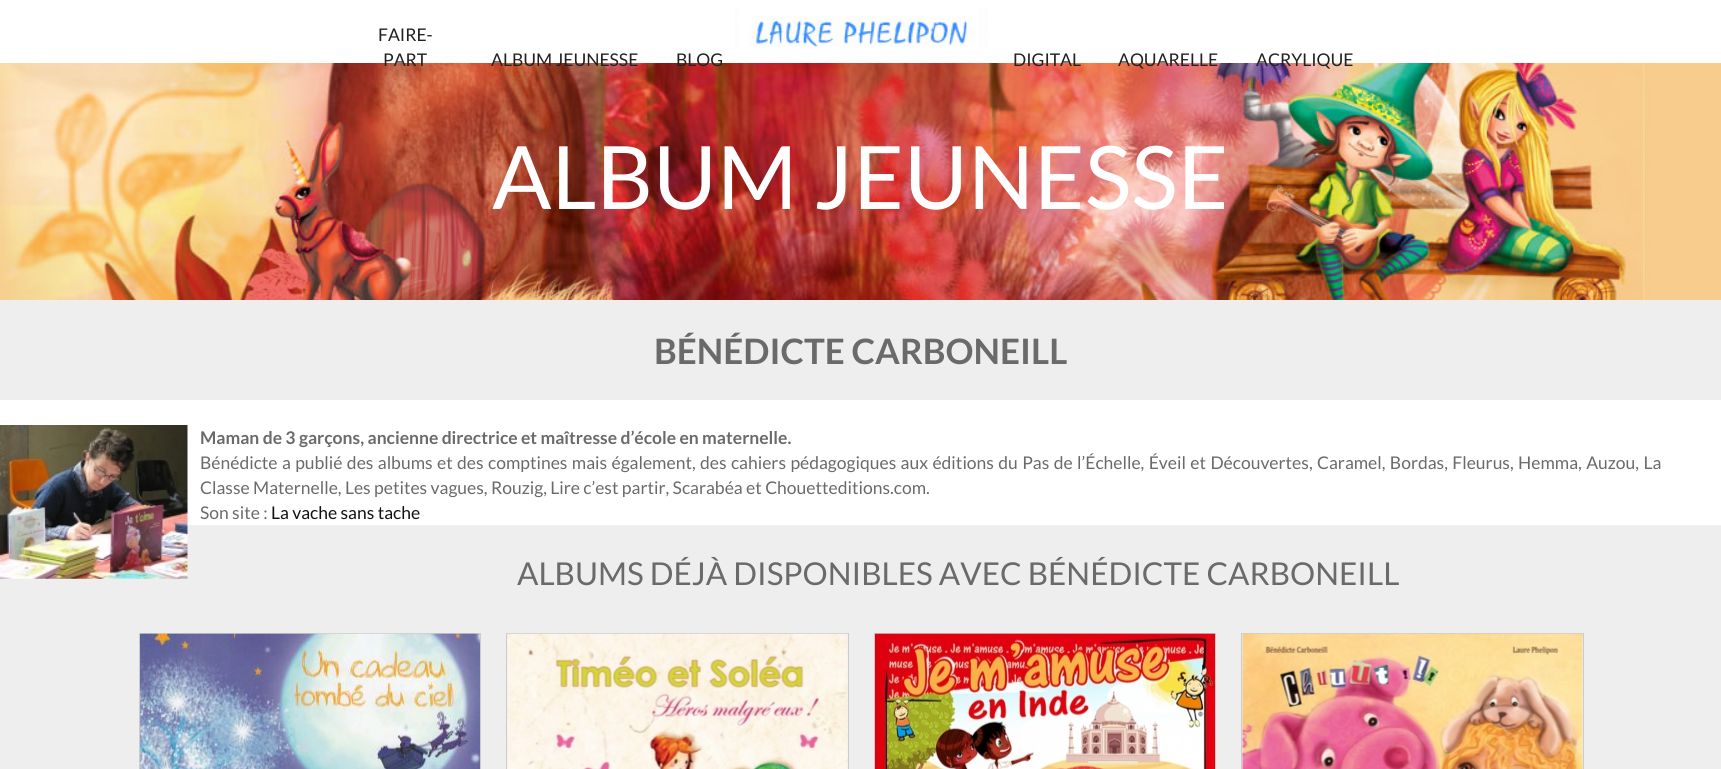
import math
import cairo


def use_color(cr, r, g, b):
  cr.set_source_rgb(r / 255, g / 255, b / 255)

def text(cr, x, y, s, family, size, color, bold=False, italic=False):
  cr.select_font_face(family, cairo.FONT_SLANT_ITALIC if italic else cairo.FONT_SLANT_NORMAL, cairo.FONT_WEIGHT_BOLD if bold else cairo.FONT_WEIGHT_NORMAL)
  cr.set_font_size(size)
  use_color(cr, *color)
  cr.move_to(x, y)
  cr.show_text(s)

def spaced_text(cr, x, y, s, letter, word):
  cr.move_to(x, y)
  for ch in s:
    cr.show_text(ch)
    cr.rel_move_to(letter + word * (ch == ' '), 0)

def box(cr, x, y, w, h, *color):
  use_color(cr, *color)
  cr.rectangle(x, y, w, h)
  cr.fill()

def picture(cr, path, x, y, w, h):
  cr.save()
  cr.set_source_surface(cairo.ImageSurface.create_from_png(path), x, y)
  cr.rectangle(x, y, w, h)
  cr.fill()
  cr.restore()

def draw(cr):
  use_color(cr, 238, 238, 238)
  cr.paint()
  box(cr, 0, 0, 1721, 63, 255, 255, 255)
  picture(cr, "img_01.png", 735, 6, 253, 44)
  picture(cr, "img_02.png", 0, 63, 1721, 237)
  box(cr, 0, 400, 1721, 125, 255, 255, 255)
  picture(cr, "img_03.png", 0, 425, 188, 154)
  cr.rectangle(139.5, 633.5, 341, 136)
  use_color(cr, 204, 204, 204)
  cr.set_line_width(1)
  cr.stroke()
  picture(cr, "img_04.png", 140, 633, 340, 136)
  cr.rectangle(506.5, 633.5, 342, 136)
  cr.stroke()
  picture(cr, "img_05.png", 507, 633, 341, 136)
  cr.rectangle(874.5, 633.5, 341, 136)
  cr.stroke()
  picture(cr, "img_06.png", 875, 633, 340, 136)
  cr.rectangle(1241.5, 633.5, 342, 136)
  cr.stroke()
  picture(cr, "img_07.png", 1242, 633, 341, 136)
  text(cr, 378, 41, "FAIRE-", "Lato", 17.5, (33, 33, 33))
  text(cr, 383, 66, "PART", "Lato", 17.5, (33, 33, 33))
  text(cr, 491, 66, "ALBUM JEUNESSE", "Lato", 17.5, (33, 33, 33))
  text(cr, 676, 66, "BLOG", "Lato", 17.5, (33, 33, 33))
  text(cr, 1013, 66, "DIGITAL", "Lato", 17.5, (33, 33, 33))
  text(cr, 1118, 66, "AQUARELLE", "Lato", 17.5, (33, 33, 33))
  text(cr, 1256, 66, "ACRYLIQUE", "Lato", 17.5, (33, 33, 33))
  text(cr, 492, 209, "ALBUM JEUNESSE", "Lato", 87.5, (255, 255, 255))
  text(cr, 654, 364, "BÉNÉDICTE CARBONEILL", "Lato", 35, (106, 106, 106), bold=True)
  text(cr, 200, 444, "Maman de 3 garçons, ancienne directrice et maîtresse d’école en maternelle.", "Lato", 17.5, (106, 106, 106), bold=True)
  cr.select_font_face("Lato")
  spaced_text(cr, 200, 469, "Bénédicte a publié des albums et des comptines mais également, des cahiers pédagogiques aux éditions du Pas de l’Échelle, Éveil et Découvertes, Caramel, Bordas, Fleurus, Hemma, Auzou, La", 0, 1)
  text(cr, 200, 494, "Classe Maternelle, Les petites vagues, Rouzig, Lire c’est partir, Scarabéa et Chouetteditions.com.", "Lato", 17.5, (106, 106, 106))
  text(cr, 200, 519, "Son site :", "Lato", 17.5, (106, 106, 106))
  text(cr, 271, 519, "La vache sans tache", "Lato", 17.5, (17, 17, 17))
  text(cr, 517, 585, "ALBUMS DÉJÀ DISPONIBLES AVEC BÉNÉDICTE CARBONEILL", "Lato", 31.5, (106, 106, 106))


surface = cairo.ImageSurface(cairo.FORMAT_RGB24, 1721, 769)
cr = cairo.Context(surface)
options = cairo.FontOptions()
options.set_hint_metrics(cairo.HINT_METRICS_OFF)
options.set_hint_style(cairo.HINT_STYLE_NONE)
cr.set_font_options(options)
cr.set_miter_limit(4)
draw(cr)
surface.write_to_png("out.png")
